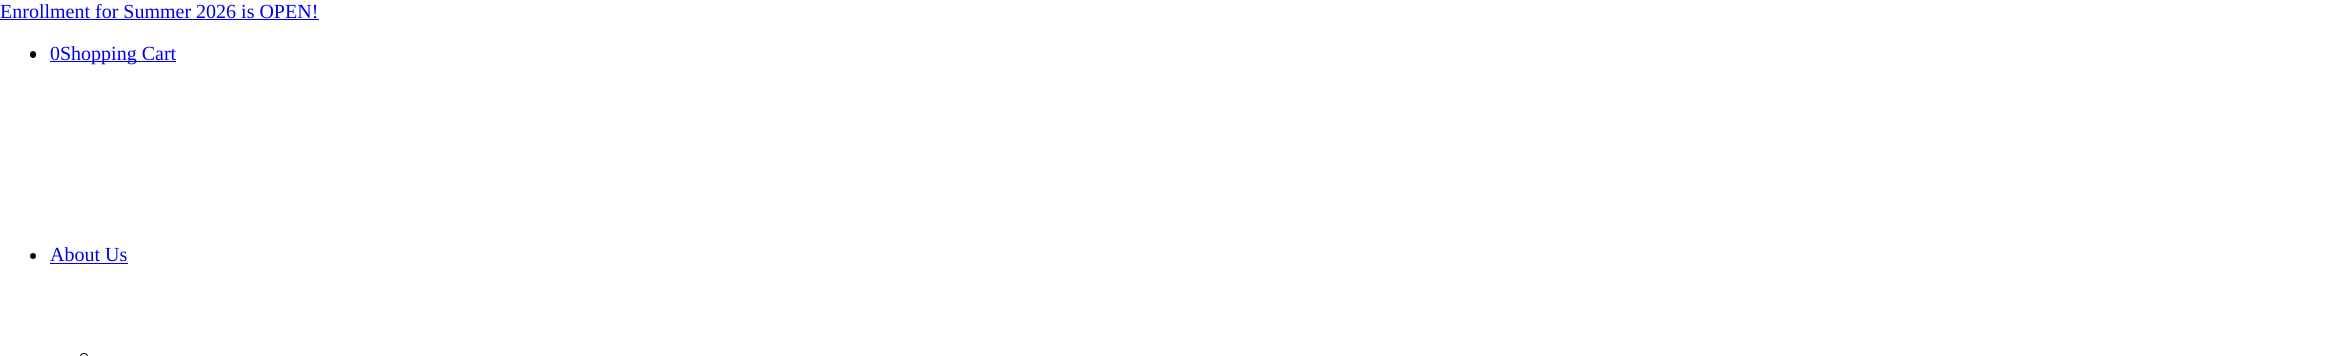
import math
import cairo


def use_color(cr, r, g, b):
  cr.set_source_rgb(r / 255, g / 255, b / 255)

def text(cr, x, y, s, family, size, color, bold=False, italic=False):
  cr.select_font_face(family, cairo.FONT_SLANT_ITALIC if italic else cairo.FONT_SLANT_NORMAL, cairo.FONT_WEIGHT_BOLD if bold else cairo.FONT_WEIGHT_NORMAL)
  cr.set_font_size(size)
  use_color(cr, *color)
  cr.move_to(x, y)
  cr.show_text(s)

def box(cr, x, y, w, h, *color):
  use_color(cr, *color)
  cr.rectangle(x, y, w, h)
  cr.fill()

def round_rect(cr, x, y, w, h, r):
  cr.new_sub_path()
  for i, (u, v) in enumerate([(x + w - r, y + h - r), (x + r, y + h - r), (x + r, y + r), (x + w - r, y + r)]):
    cr.arc(u, v, r, i * math.pi / 2, (i + 1) * math.pi / 2)
  cr.close_path()

def draw(cr):
  use_color(cr, 255, 255, 255)
  cr.paint()
  box(cr, 0, 19, 319, 1, 0, 0, 238)
  use_color(cr, 0, 0, 0)
  round_rect(cr, 30, 51, 6, 7, 3)
  cr.fill()
  box(cr, 50, 61, 126, 1, 0, 0, 238)
  use_color(cr, 0, 0, 0)
  cr.arc(33, 256, 3, 0, 2 * math.pi)
  cr.fill()
  box(cr, 50, 263, 78, 1, 0, 0, 238)
  round_rect(cr, 80.5, 353.5, 7, 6, 3)
  use_color(cr, 0, 0, 0)
  cr.set_line_width(1)
  cr.stroke()
  text(cr, 0, 18, "Enrollment for Summer 2026 is OPEN!", "Liberation Serif", 20, (0, 0, 238))
  text(cr, 50, 60, "0Shopping Cart", "Liberation Serif", 20, (0, 0, 238))
  text(cr, 50, 261, "About Us", "Liberation Serif", 20, (0, 0, 238))


surface = cairo.ImageSurface(cairo.FORMAT_RGB24, 2333, 356)
cr = cairo.Context(surface)
options = cairo.FontOptions()
options.set_hint_metrics(cairo.HINT_METRICS_OFF)
options.set_hint_style(cairo.HINT_STYLE_NONE)
cr.set_font_options(options)
cr.set_miter_limit(4)
draw(cr)
surface.write_to_png("out.png")
